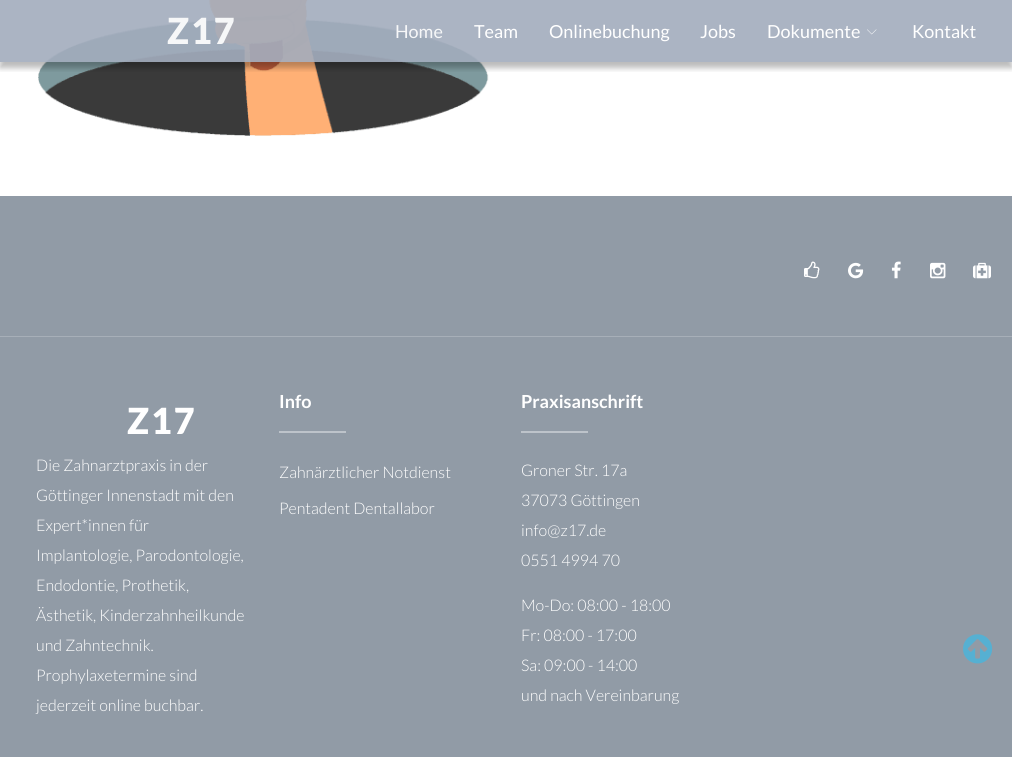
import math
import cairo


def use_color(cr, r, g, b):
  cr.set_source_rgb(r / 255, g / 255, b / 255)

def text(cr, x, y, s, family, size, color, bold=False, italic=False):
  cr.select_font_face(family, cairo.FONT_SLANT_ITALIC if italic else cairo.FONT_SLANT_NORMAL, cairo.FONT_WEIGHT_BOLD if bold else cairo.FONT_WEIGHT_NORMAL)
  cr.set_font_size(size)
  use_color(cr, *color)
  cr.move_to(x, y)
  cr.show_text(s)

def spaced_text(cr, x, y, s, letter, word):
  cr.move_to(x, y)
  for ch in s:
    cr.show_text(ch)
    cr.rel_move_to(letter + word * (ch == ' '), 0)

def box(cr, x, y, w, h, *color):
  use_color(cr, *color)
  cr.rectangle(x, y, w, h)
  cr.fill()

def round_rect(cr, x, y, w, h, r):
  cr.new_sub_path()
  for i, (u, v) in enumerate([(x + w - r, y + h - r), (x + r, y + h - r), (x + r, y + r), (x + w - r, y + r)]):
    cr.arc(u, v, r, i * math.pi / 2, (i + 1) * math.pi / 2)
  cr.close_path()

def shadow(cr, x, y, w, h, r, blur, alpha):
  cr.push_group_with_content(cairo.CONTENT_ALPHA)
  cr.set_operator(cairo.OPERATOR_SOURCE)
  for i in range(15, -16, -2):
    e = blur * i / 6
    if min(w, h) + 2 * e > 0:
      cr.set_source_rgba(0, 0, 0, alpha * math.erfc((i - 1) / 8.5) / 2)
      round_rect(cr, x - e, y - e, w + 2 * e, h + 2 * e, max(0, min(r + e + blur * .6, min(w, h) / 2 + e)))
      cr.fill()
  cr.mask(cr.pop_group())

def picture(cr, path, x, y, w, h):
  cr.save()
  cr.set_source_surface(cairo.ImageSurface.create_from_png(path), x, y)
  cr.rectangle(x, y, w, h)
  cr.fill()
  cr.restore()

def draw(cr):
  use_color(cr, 255, 255, 255)
  cr.paint()
  picture(cr, "img_01.png", 38, 0, 451, 136)
  cr.save()
  cr.rectangle(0, 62, 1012, 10)
  cr.clip()
  use_color(cr, 0, 0, 0)
  shadow(cr, 0, 6, 1012, 62, 0, 3, 0.27)
  cr.restore()
  cr.set_source_rgba(0.635, 0.675, 0.741, 0.9)
  cr.rectangle(0, 0, 1012, 62)
  cr.fill()
  picture(cr, "img_02.png", 867, 29, 10, 6)
  box(cr, 0, 196, 1012, 561, 145, 155, 166)
  box(cr, 0, 336, 1012, 1, 167, 175, 184)
  picture(cr, "img_03.png", 804, 261, 16, 18)
  picture(cr, "img_04.png", 848, 262, 16, 17)
  picture(cr, "img_05.png", 891, 261, 10, 18)
  picture(cr, "img_06.png", 930, 262, 16, 17)
  picture(cr, "img_07.png", 973, 262, 18, 17)
  box(cr, 279, 431, 67, 2, 189, 195, 202)
  box(cr, 521, 431, 67, 2, 189, 195, 202)
  picture(cr, "img_08.png", 963, 634, 30, 30)
  cr.select_font_face("Lato Black")
  cr.set_font_size(36)
  use_color(cr, 246, 247, 248)
  spaced_text(cr, 167, 44, "Z17", 2, 0)
  text(cr, 395, 38, "Home", "Lato", 18, (246, 247, 248))
  text(cr, 474, 38, "Team", "Lato", 18, (255, 255, 255))
  text(cr, 549, 38, "Onlinebuchung", "Lato", 18, (255, 255, 255))
  text(cr, 700, 38, "Jobs", "Lato", 18, (255, 255, 255))
  text(cr, 767, 38, "Dokumente", "Lato", 18, (255, 255, 255))
  text(cr, 912, 38, "Kontakt", "Lato", 18, (255, 255, 255))
  cr.select_font_face("Lato Black")
  cr.set_font_size(36)
  spaced_text(cr, 127, 434, "Z17", 2, 0)
  text(cr, 279, 408, "Info", "Lato", 18, (255, 255, 255), bold=True)
  text(cr, 279, 478, "Zahnärztlicher Notdienst", "Lato Light", 16, (255, 255, 255))
  text(cr, 279, 514, "Pentadent Dentallabor", "Lato Light", 16, (255, 255, 255))
  text(cr, 521, 408, "Praxisanschrift", "Lato", 18, (255, 255, 255), bold=True)
  text(cr, 521, 476, "Groner Str. 17a", "Lato Light", 16, (255, 255, 255))
  text(cr, 521, 506, "37073 Göttingen", "Lato Light", 16, (255, 255, 255))
  text(cr, 521, 536, "info@z17.de", "Lato Light", 16, (255, 255, 255))
  text(cr, 521, 566, "0551 4994 70", "Lato Light", 16, (255, 255, 255))
  text(cr, 521, 611, "Mo-Do: 08:00 - 18:00", "Lato Light", 16, (255, 255, 255))
  text(cr, 521, 641, "Fr: 08:00 - 17:00", "Lato Light", 16, (255, 255, 255))
  text(cr, 521, 671, "Sa: 09:00 - 14:00", "Lato Light", 16, (255, 255, 255))
  text(cr, 521, 701, "und nach Vereinbarung", "Lato Light", 16, (255, 255, 255))
  text(cr, 36, 471, "Die Zahnarztpraxis in der", "Lato Light", 16, (255, 255, 255))
  text(cr, 36, 501, "Göttinger Innenstadt mit den", "Lato Light", 16, (255, 255, 255))
  text(cr, 36, 531, "Expert*innen für", "Lato Light", 16, (255, 255, 255))
  text(cr, 36, 561, "Implantologie, Parodontologie,", "Lato Light", 16, (255, 255, 255))
  text(cr, 36, 591, "Endodontie, Prothetik,", "Lato Light", 16, (255, 255, 255))
  text(cr, 36, 621, "Ästhetik, Kinderzahnheilkunde", "Lato Light", 16, (255, 255, 255))
  text(cr, 36, 651, "und Zahntechnik.", "Lato Light", 16, (255, 255, 255))
  text(cr, 36, 681, "Prophylaxetermine sind", "Lato Light", 16, (255, 255, 255))
  text(cr, 36, 711, "jederzeit online buchbar.", "Lato Light", 16, (255, 255, 255))


surface = cairo.ImageSurface(cairo.FORMAT_RGB24, 1012, 757)
cr = cairo.Context(surface)
options = cairo.FontOptions()
options.set_hint_metrics(cairo.HINT_METRICS_OFF)
options.set_hint_style(cairo.HINT_STYLE_NONE)
cr.set_font_options(options)
cr.set_miter_limit(4)
draw(cr)
surface.write_to_png("out.png")
